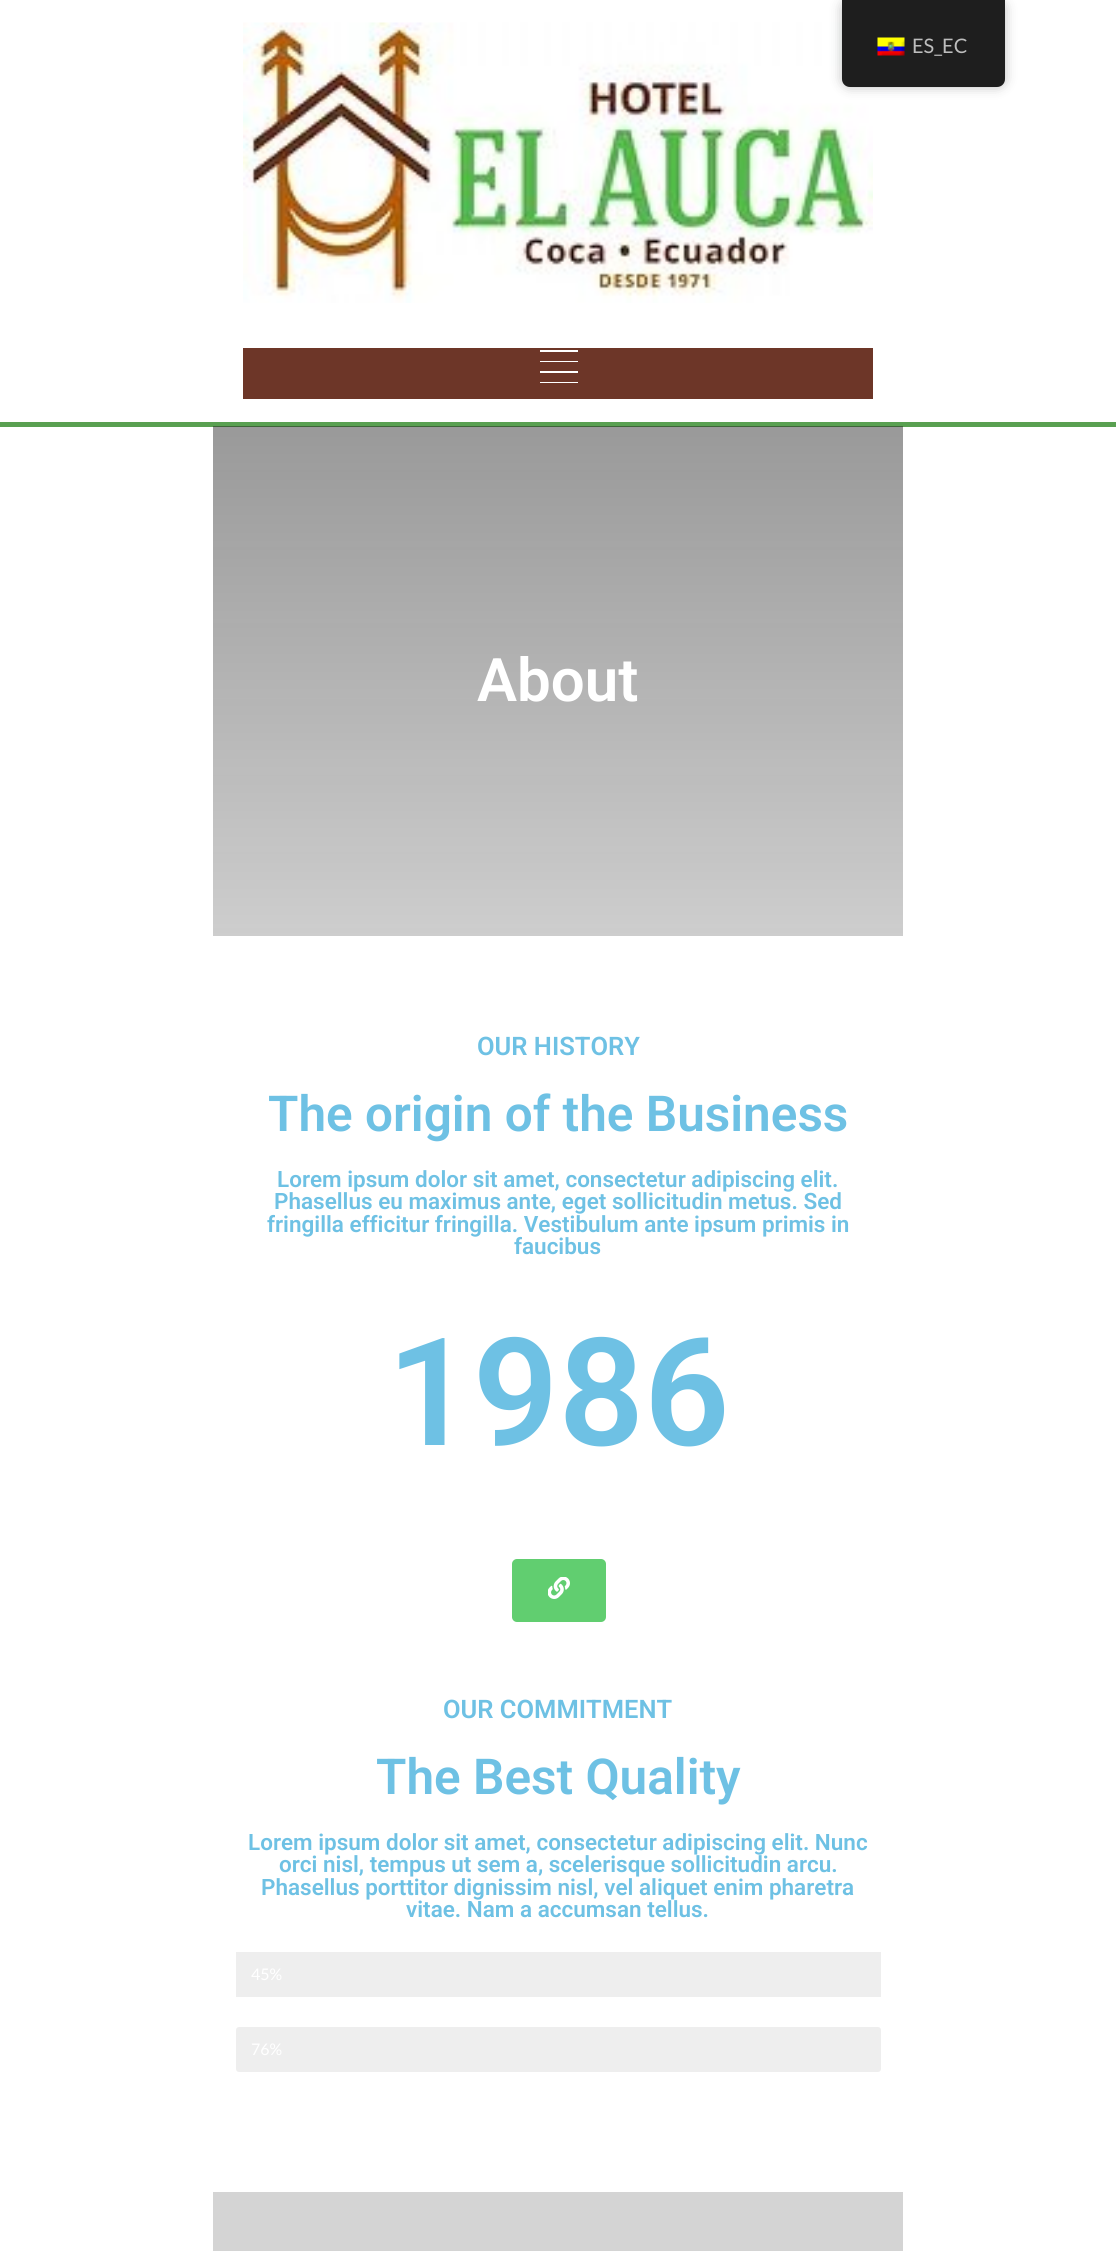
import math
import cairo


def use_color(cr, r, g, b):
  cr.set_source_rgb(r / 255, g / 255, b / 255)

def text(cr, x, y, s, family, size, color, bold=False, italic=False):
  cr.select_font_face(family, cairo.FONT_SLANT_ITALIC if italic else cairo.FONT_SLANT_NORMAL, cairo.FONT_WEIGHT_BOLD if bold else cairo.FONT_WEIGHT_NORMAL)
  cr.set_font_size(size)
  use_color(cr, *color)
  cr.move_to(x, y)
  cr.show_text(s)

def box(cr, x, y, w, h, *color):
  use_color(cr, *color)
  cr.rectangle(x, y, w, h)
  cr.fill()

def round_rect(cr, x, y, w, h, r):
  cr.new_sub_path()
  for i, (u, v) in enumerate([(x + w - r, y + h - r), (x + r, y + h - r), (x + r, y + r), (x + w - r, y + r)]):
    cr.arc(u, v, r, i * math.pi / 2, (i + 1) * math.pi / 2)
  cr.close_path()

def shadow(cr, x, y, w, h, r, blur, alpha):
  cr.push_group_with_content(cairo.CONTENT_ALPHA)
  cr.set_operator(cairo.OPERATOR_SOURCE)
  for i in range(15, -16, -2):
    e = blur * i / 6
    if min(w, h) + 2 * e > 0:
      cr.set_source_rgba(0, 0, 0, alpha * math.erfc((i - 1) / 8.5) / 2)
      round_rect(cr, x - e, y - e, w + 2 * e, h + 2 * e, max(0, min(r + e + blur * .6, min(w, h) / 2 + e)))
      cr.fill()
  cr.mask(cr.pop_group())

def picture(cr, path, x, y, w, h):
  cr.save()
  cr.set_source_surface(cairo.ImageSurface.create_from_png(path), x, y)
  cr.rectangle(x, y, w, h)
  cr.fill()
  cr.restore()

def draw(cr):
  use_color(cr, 255, 255, 255)
  cr.paint()
  picture(cr, "img_02.png", 243, 22, 630, 281)
  use_color(cr, 0, 0, 0)
  shadow(cr, 842, 0, 163, 87, 8, 6, 0.25)
  use_color(cr, 30, 30, 30)
  cr.new_path()
  cr.move_to(842, 0)
  cr.line_to(1005, 0)
  cr.line_to(1005, 79)
  cr.curve_to(1005, 83.5, 1001.5, 87, 997, 87)
  cr.line_to(850, 87)
  cr.curve_to(845.5, 87, 842, 83.5, 842, 79)
  cr.close_path()
  cr.fill()
  picture(cr, "img_01.png", 877, 37, 28, 19)
  box(cr, 243, 348, 630, 51, 109, 54, 40)
  box(cr, 540, 350, 38, 2, 255, 255, 255)
  box(cr, 540, 361, 38, 1, 255, 255, 255)
  box(cr, 540, 371, 38, 2, 255, 255, 255)
  box(cr, 540, 382, 38, 1, 255, 255, 255)
  box(cr, 0, 422, 1116, 5, 89, 160, 81)
  gradient = cairo.LinearGradient(558, 426, 558, 936)
  gradient.add_color_stop_rgba(0, 0.114, 0.114, 0.114, 0.45)
  gradient.add_color_stop_rgba(1, 0.114, 0.114, 0.114, 0.22)
  cr.set_source(gradient)
  cr.rectangle(213, 426, 690, 510)
  cr.fill()
  use_color(cr, 97, 206, 112)
  round_rect(cr, 512, 1559, 94, 63, 5)
  cr.fill()
  picture(cr, "img_03.png", 548, 1577, 22, 22)
  box(cr, 236, 1952, 645, 45, 238, 238, 238)
  round_rect(cr, 236, 2027, 645, 45, 3)
  cr.fill()
  box(cr, 213, 2192, 690, 59, 212, 212, 212)
  text(cr, 912, 53, "ES_EC", "Lato", 20, (189, 189, 189))
  text(cr, 477, 701, "About", "Roboto SemiBold", 60, (255, 255, 255))
  text(cr, 477, 1055, "OUR HISTORY", "Roboto SemiBold", 25.5, (110, 193, 228))
  text(cr, 268, 1131, "The origin of the Business", "Roboto SemiBold", 49.5, (110, 193, 228))
  text(cr, 277, 1187, "Lorem ipsum dolor sit amet, consectetur adipiscing elit.", "Roboto SemiBold", 22.5, (110, 193, 228))
  text(cr, 274, 1209, "Phasellus eu maximus ante, eget sollicitudin metus. Sed", "Roboto SemiBold", 22.5, (110, 193, 228))
  text(cr, 267, 1232, "fringilla efficitur fringilla. Vestibulum ante ipsum primis in", "Roboto SemiBold", 22.5, (110, 193, 228))
  text(cr, 514, 1254, "faucibus", "Roboto SemiBold", 22.5, (110, 193, 228))
  text(cr, 387, 1445, "1986", "Roboto SemiBold", 150, (110, 193, 228))
  text(cr, 443, 1718, "OUR COMMITMENT", "Roboto SemiBold", 25.5, (110, 193, 228))
  text(cr, 376, 1794, "The Best Quality", "Roboto SemiBold", 49.5, (110, 193, 228))
  text(cr, 248, 1850, "Lorem ipsum dolor sit amet, consectetur adipiscing elit. Nunc", "Roboto SemiBold", 22.5, (110, 193, 228))
  text(cr, 279, 1872, "orci nisl, tempus ut sem a, scelerisque sollicitudin arcu.", "Roboto SemiBold", 22.5, (110, 193, 228))
  text(cr, 261, 1895, "Phasellus porttitor dignissim nisl, vel aliquet enim pharetra", "Roboto SemiBold", 22.5, (110, 193, 228))
  text(cr, 406, 1917, "vitae. Nam a accumsan tellus.", "Roboto SemiBold", 22.5, (110, 193, 228))
  text(cr, 251, 1980, "45%", "Lato", 16, (255, 255, 255))
  text(cr, 251, 2055, "76%", "Lato", 16, (255, 255, 255))


surface = cairo.ImageSurface(cairo.FORMAT_RGB24, 1116, 2251)
cr = cairo.Context(surface)
options = cairo.FontOptions()
options.set_hint_metrics(cairo.HINT_METRICS_OFF)
options.set_hint_style(cairo.HINT_STYLE_NONE)
cr.set_font_options(options)
cr.set_miter_limit(4)
draw(cr)
surface.write_to_png("out.png")
